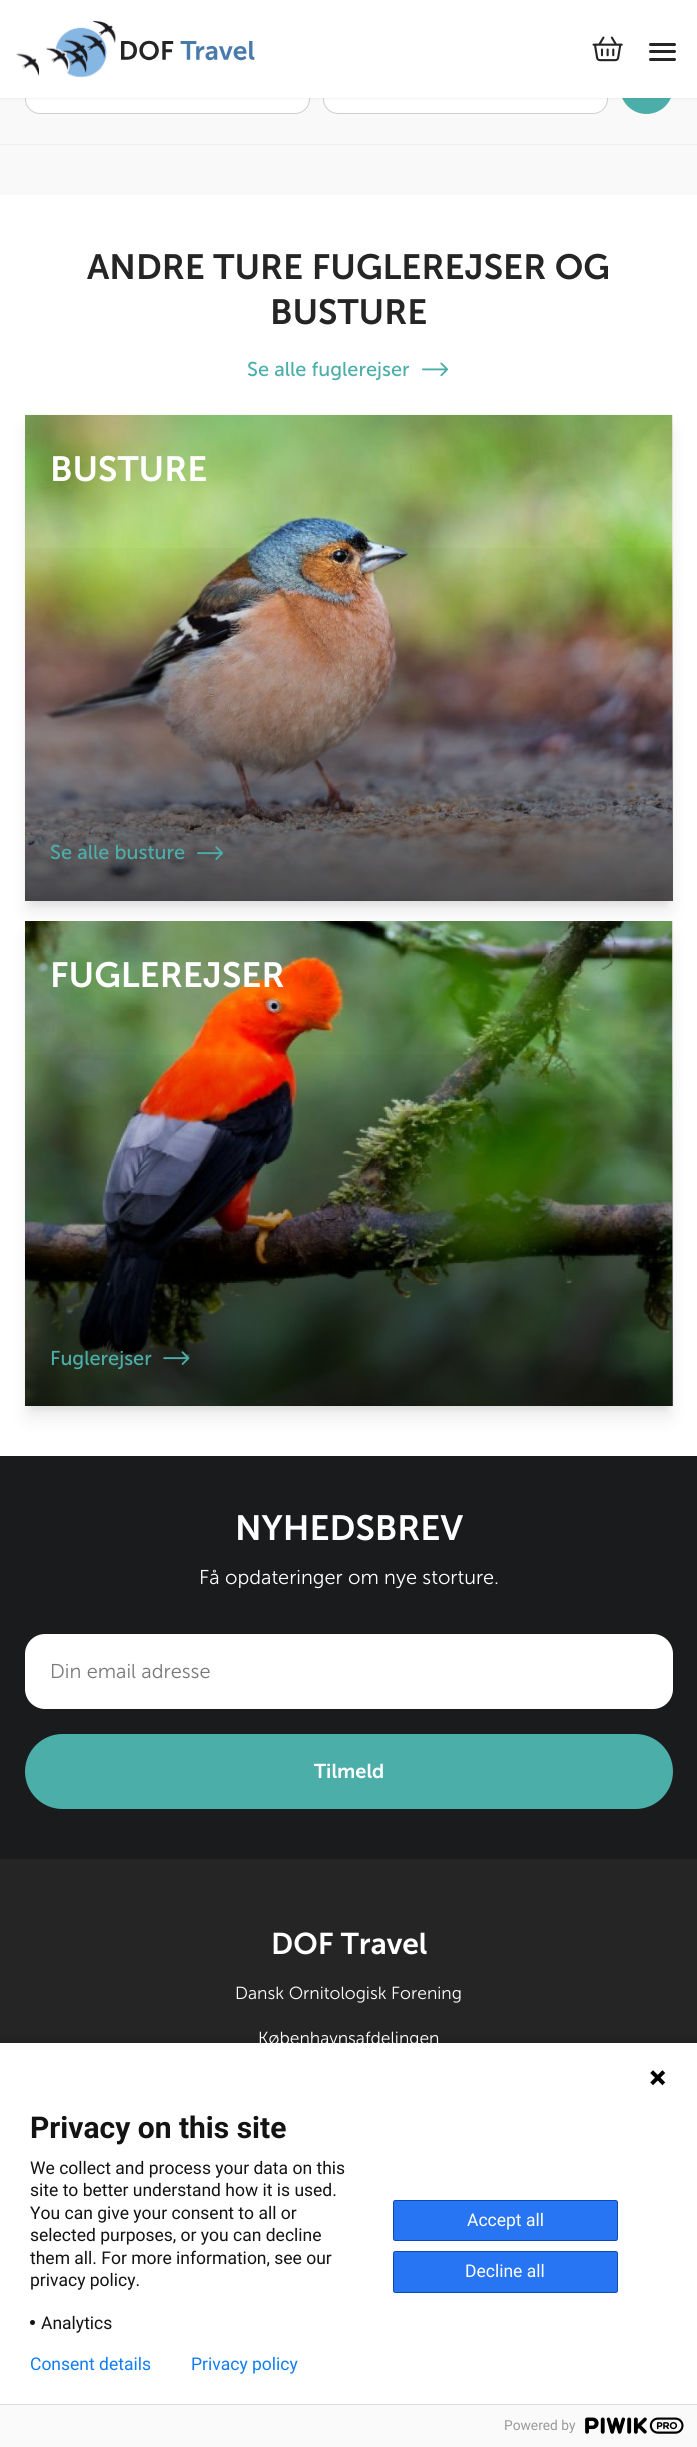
import math
import cairo


def use_color(cr, r, g, b):
  cr.set_source_rgb(r / 255, g / 255, b / 255)

def text(cr, x, y, s, family, size, color, bold=False, italic=False):
  cr.select_font_face(family, cairo.FONT_SLANT_ITALIC if italic else cairo.FONT_SLANT_NORMAL, cairo.FONT_WEIGHT_BOLD if bold else cairo.FONT_WEIGHT_NORMAL)
  cr.set_font_size(size)
  use_color(cr, *color)
  cr.move_to(x, y)
  cr.show_text(s)

def box(cr, x, y, w, h, *color):
  use_color(cr, *color)
  cr.rectangle(x, y, w, h)
  cr.fill()

def round_rect(cr, x, y, w, h, r):
  cr.new_sub_path()
  for i, (u, v) in enumerate([(x + w - r, y + h - r), (x + r, y + h - r), (x + r, y + r), (x + w - r, y + r)]):
    cr.arc(u, v, r, i * math.pi / 2, (i + 1) * math.pi / 2)
  cr.close_path()

def shadow(cr, x, y, w, h, r, blur, alpha):
  cr.push_group_with_content(cairo.CONTENT_ALPHA)
  cr.set_operator(cairo.OPERATOR_SOURCE)
  for i in range(15, -16, -2):
    e = blur * i / 6
    if min(w, h) + 2 * e > 0:
      cr.set_source_rgba(0, 0, 0, alpha * math.erfc((i - 1) / 8.5) / 2)
      round_rect(cr, x - e, y - e, w + 2 * e, h + 2 * e, max(0, min(r + e + blur * .6, min(w, h) / 2 + e)))
      cr.fill()
  cr.mask(cr.pop_group())

def picture(cr, path, x, y, w, h):
  cr.save()
  cr.set_source_surface(cairo.ImageSurface.create_from_png(path), x, y)
  cr.rectangle(x, y, w, h)
  cr.fill()
  cr.restore()

def draw(cr):
  use_color(cr, 255, 255, 255)
  cr.paint()
  box(cr, 0, 98, 697, 46, 249, 249, 249)
  use_color(cr, 255, 255, 255)
  round_rect(cr, 25.5, 61.5, 284, 52, 14.5)
  cr.fill_preserve()
  use_color(cr, 206, 206, 206)
  cr.set_line_width(1)
  cr.stroke()
  use_color(cr, 255, 255, 255)
  round_rect(cr, 323.5, 61.5, 284, 52, 14.5)
  cr.fill_preserve()
  use_color(cr, 206, 206, 206)
  cr.stroke()
  use_color(cr, 76, 174, 169)
  cr.arc(646.5, 87.5, 26.5, 0, 2 * math.pi)
  cr.fill()
  use_color(cr, 0, 0, 0)
  shadow(cr, 0, 1, 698, 98, 0, 1, 0.05)
  box(cr, 0, 0, 697, 98, 255, 255, 255)
  picture(cr, "img_01.png", 16, 20, 239, 58)
  picture(cr, "img_02.png", 592, 36, 31, 26)
  use_color(cr, 37, 37, 38)
  round_rect(cr, 649, 50, 27, 3, 1.5)
  cr.fill()
  round_rect(cr, 649, 43, 27, 3, 1.5)
  cr.fill()
  round_rect(cr, 649, 58, 27, 3, 1.5)
  cr.fill()
  box(cr, 0, 145, 697, 50, 249, 249, 249)
  box(cr, 0, 144, 697, 1, 239, 239, 239)
  picture(cr, "img_03.png", 422, 362, 27, 15)
  use_color(cr, 0, 0, 0)
  shadow(cr, 30, 425, 638, 476, 0, 4, 0.1)
  shadow(cr, 29, 431, 640, 479, 0, 9.5, 0.1)
  picture(cr, "img_04.png", 25, 414, 648, 487)
  gradient = cairo.LinearGradient(349, 1023, 349, 536)
  gradient.add_color_stop_rgba(0, 0, 0, 0, 0.9)
  gradient.add_color_stop_rgba(1, 0, 0, 0, 0)
  cr.set_source(gradient)
  cr.rectangle(25, 548, 648, 353)
  cr.fill()
  picture(cr, "img_05.png", 197, 846, 27, 14)
  use_color(cr, 0, 0, 0)
  shadow(cr, 30, 931, 638, 475, 0, 4, 0.1)
  shadow(cr, 29, 938, 640, 477, 0, 9.5, 0.1)
  picture(cr, "img_06.png", 25, 921, 648, 485)
  gradient = cairo.LinearGradient(349, 1528, 349, 1043)
  gradient.add_color_stop_rgba(0, 0, 0, 0, 0.9)
  gradient.add_color_stop_rgba(1, 0, 0, 0, 0)
  cr.set_source(gradient)
  cr.rectangle(25, 1055, 648, 351)
  cr.fill()
  picture(cr, "img_07.png", 163, 1351, 27, 14)
  box(cr, 0, 1456, 697, 403, 25, 27, 28)
  use_color(cr, 255, 255, 255)
  round_rect(cr, 25, 1634, 648, 75, 20)
  cr.fill()
  use_color(cr, 76, 174, 169)
  round_rect(cr, 25, 1734, 648, 75, 37.5)
  cr.fill()
  box(cr, 0, 1859, 697, 184, 37, 37, 38)
  use_color(cr, 0, 0, 0)
  shadow(cr, -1, 2039, 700, 407, 0, 3, 0.14)
  box(cr, 0, 2043, 697, 361, 255, 255, 255)
  picture(cr, "img_08.png", 650, 2070, 16, 16)
  use_color(cr, 19, 19, 19)
  cr.arc(32.5, 2322.5, 2.5, 0, 2 * math.pi)
  cr.fill()
  use_color(cr, 39, 117, 242)
  round_rect(cr, 393.5, 2200.5, 224, 40, 2)
  cr.fill_preserve()
  use_color(cr, 11, 75, 179)
  cr.stroke()
  use_color(cr, 39, 117, 242)
  round_rect(cr, 393.5, 2251.5, 224, 41, 2)
  cr.fill_preserve()
  use_color(cr, 11, 75, 179)
  cr.stroke()
  box(cr, 0, 2405, 697, 42, 250, 250, 250)
  box(cr, 0, 2404, 697, 1, 221, 221, 221)
  picture(cr, "img_09.png", 585, 2417, 99, 17)
  text(cr, 87, 279, "ANDRE TURE FUGLEREJSER OG", "Museo Sans SemiBold", 35, (37, 37, 38))
  text(cr, 270, 324, "BUSTURE", "Museo Sans SemiBold", 35, (37, 37, 38))
  text(cr, 247, 376, "Se alle fuglerejser", "Museo Sans", 20, (76, 174, 169))
  text(cr, 50, 481, "BUSTURE", "Museo Sans SemiBold", 35, (255, 255, 255))
  text(cr, 50, 859, "Se alle busture", "Museo Sans", 20, (76, 174, 169))
  text(cr, 50, 987, "FUGLEREJSER", "Museo Sans SemiBold", 35, (255, 255, 255))
  text(cr, 50, 1365, "Fuglerejser", "Museo Sans", 20, (76, 174, 169))
  text(cr, 235, 1540, "NYHEDSBREV", "Museo Sans SemiBold", 35, (255, 255, 255))
  text(cr, 199, 1584, "Få opdateringer om nye storture.", "Museo Sans Light", 20, (255, 255, 255))
  text(cr, 50, 1678, "Din email adresse", "Museo Sans Light", 20, (120, 120, 120))
  text(cr, 314, 1778, "Tilmeld", "Museo Sans SemiBold", 20, (255, 255, 255))
  text(cr, 271, 1954, "DOF Travel", "Museo Sans SemiBold", 30, (255, 255, 255))
  text(cr, 235, 1999, "Dansk Ornitologisk Forening", "Museo Sans Light", 17.5, (255, 255, 255))
  text(cr, 258, 2044, "Københavnsafdelingen", "Museo Sans Light", 17.5, (255, 255, 255))
  text(cr, 30, 2138, "Privacy on this site", "Roboto", 30, (19, 19, 19), bold=True)
  text(cr, 30, 2174, "We collect and process your data on this", "Roboto", 17.5, (19, 19, 19))
  text(cr, 30, 2196, "site to better understand how it is used.", "Roboto", 17.5, (19, 19, 19))
  text(cr, 30, 2219, "You can give your consent to all or", "Roboto", 17.5, (19, 19, 19))
  text(cr, 30, 2241, "selected purposes, or you can decline", "Roboto", 17.5, (19, 19, 19))
  text(cr, 30, 2264, "them all. For more information, see our", "Roboto", 17.5, (19, 19, 19))
  text(cr, 30, 2286, "privacy policy.", "Roboto", 17.5, (19, 19, 19))
  text(cr, 41, 2329, "Analytics", "Roboto", 17.5, (19, 19, 19))
  text(cr, 467, 2226, "Accept all", "Roboto", 17.5, (255, 255, 255))
  text(cr, 465, 2277, "Decline all", "Roboto", 17.5, (255, 255, 255))
  text(cr, 30, 2370, "Consent details", "Roboto", 17.5, (16, 126, 241))
  text(cr, 191, 2370, "Privacy policy", "Roboto", 17.5, (16, 126, 241))
  text(cr, 504, 2430, "Powered by", "Roboto", 13.75, (153, 153, 153))


surface = cairo.ImageSurface(cairo.FORMAT_RGB24, 697, 2447)
cr = cairo.Context(surface)
options = cairo.FontOptions()
options.set_hint_metrics(cairo.HINT_METRICS_OFF)
options.set_hint_style(cairo.HINT_STYLE_NONE)
cr.set_font_options(options)
cr.set_miter_limit(4)
draw(cr)
surface.write_to_png("out.png")
